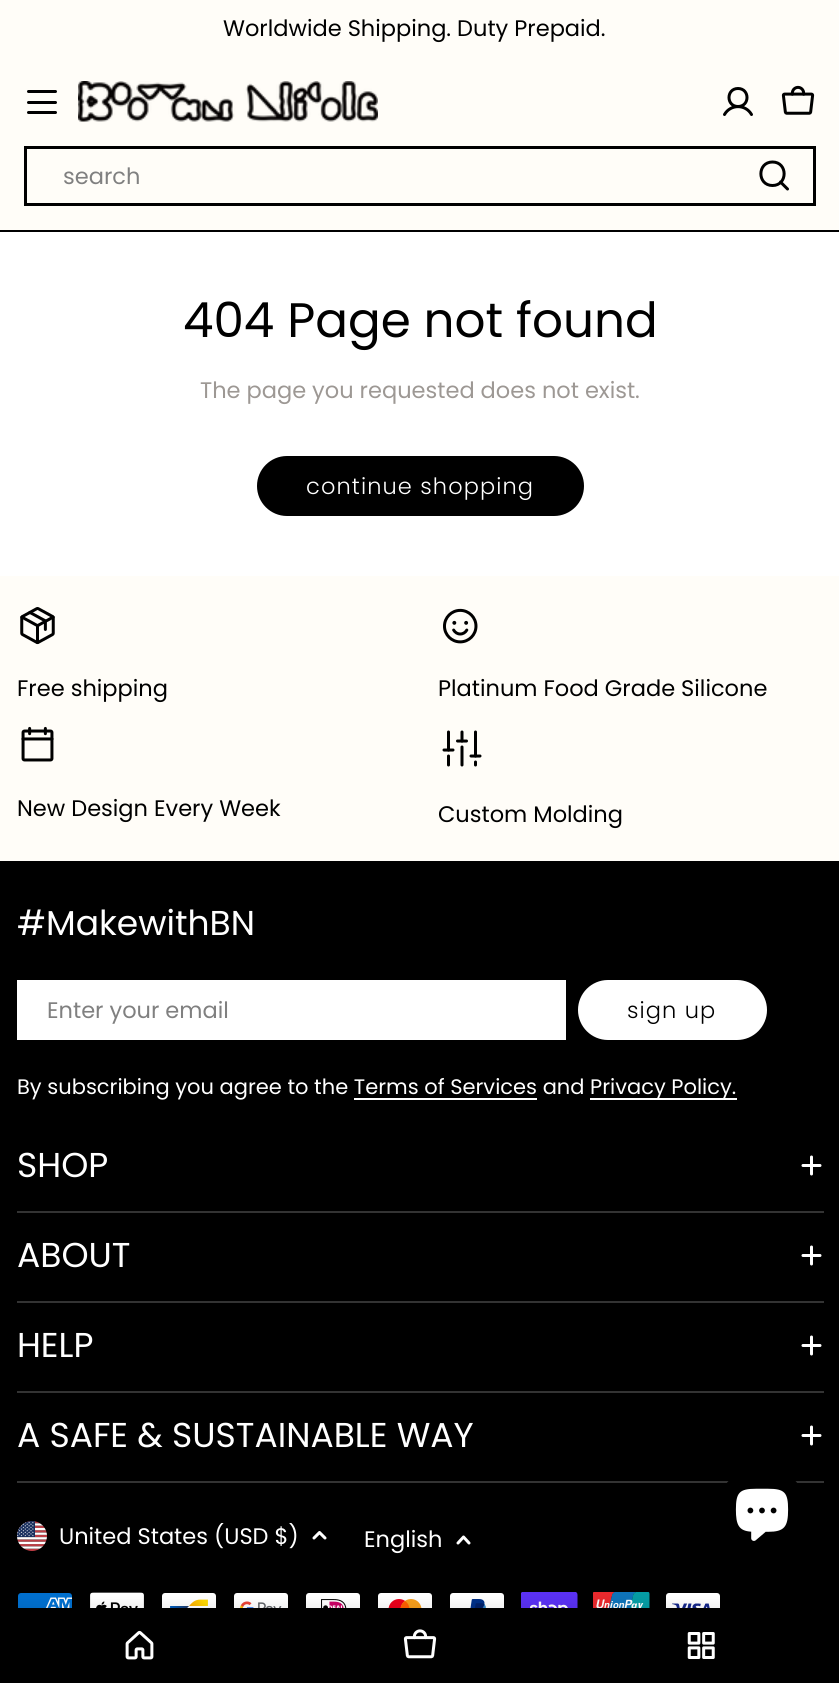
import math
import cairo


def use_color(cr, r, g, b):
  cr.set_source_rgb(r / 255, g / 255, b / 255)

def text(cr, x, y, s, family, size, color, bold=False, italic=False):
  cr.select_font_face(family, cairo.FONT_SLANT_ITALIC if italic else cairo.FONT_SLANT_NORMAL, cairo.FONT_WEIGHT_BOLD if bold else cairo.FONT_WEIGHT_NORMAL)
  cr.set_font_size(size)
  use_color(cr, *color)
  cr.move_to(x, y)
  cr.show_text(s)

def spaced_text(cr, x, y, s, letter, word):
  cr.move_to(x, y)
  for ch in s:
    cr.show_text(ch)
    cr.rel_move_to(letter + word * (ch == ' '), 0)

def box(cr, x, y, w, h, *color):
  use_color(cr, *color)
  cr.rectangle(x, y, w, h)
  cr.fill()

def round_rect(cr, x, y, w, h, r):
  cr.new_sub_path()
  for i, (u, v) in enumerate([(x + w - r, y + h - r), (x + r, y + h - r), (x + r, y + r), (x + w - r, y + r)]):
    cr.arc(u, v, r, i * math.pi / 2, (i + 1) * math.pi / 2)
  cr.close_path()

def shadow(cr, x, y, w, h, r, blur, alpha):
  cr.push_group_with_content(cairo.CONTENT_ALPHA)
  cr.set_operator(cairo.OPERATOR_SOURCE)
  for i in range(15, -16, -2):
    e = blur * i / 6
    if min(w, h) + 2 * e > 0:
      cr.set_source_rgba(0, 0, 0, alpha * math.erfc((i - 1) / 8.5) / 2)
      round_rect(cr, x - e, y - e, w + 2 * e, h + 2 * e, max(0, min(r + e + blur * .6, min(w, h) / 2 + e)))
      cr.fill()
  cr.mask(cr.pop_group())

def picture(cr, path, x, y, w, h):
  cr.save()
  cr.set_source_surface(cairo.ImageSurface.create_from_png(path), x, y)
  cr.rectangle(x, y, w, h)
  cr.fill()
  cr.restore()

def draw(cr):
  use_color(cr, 255, 255, 255)
  cr.paint()
  box(cr, 0, 0, 839, 230, 255, 253, 248)
  use_color(cr, 0, 0, 0)
  round_rect(cr, 27, 101, 30, 3, 1.5)
  cr.fill()
  round_rect(cr, 27, 90, 30, 3, 1.5)
  cr.fill()
  round_rect(cr, 27, 111, 30, 3, 1.5)
  cr.fill()
  picture(cr, "img_01.png", 78, 81, 300, 41)
  cr.new_path()
  cr.move_to(738, 106.5)
  cr.curve_to(750, 106.5, 750, 88.5, 738, 88.5)
  cr.curve_to(726, 88.5, 726, 106.5, 738, 106.5)
  cr.close_path()
  cr.move_to(724.5, 114.5)
  cr.curve_to(730.5, 104, 745.5, 104, 751.5, 114.5)
  cr.set_line_width(3)
  cr.set_line_cap(cairo.LINE_CAP_ROUND)
  cr.set_line_join(cairo.LINE_JOIN_ROUND)
  cr.stroke()
  picture(cr, "img_02.png", 781, 85, 34, 30)
  cr.rectangle(25.5, 147.5, 789, 57)
  cr.set_line_cap(cairo.LINE_CAP_BUTT)
  cr.set_line_join(cairo.LINE_JOIN_MITER)
  cr.stroke()
  cr.new_path()
  cr.move_to(772.5, 185.5)
  cr.curve_to(788, 185.5, 788, 162, 772.5, 162)
  cr.curve_to(757, 162, 757, 185.5, 772.5, 185.5)
  cr.close_path()
  cr.move_to(780.5, 182)
  cr.line_to(787.5, 189)
  cr.set_line_cap(cairo.LINE_CAP_ROUND)
  cr.set_line_join(cairo.LINE_JOIN_ROUND)
  cr.stroke()
  box(cr, 0, 230, 839, 2, 0, 0, 0)
  round_rect(cr, 258, 457, 325, 58, 29)
  cr.fill_preserve()
  cr.set_line_width(2)
  cr.set_line_cap(cairo.LINE_CAP_BUTT)
  cr.set_line_join(cairo.LINE_JOIN_MITER)
  cr.stroke()
  box(cr, 0, 576, 839, 285, 255, 253, 248)
  picture(cr, "img_03.png", 20, 607, 35, 38)
  picture(cr, "img_04.png", 443, 608, 35, 36)
  picture(cr, "img_05.png", 21, 726, 33, 36)
  picture(cr, "img_06.png", 442, 730, 40, 37)
  box(cr, 0, 861, 839, 747, 0, 0, 0)
  box(cr, 17, 980, 549, 60, 255, 255, 255)
  round_rect(cr, 579, 981, 187, 58, 29)
  cr.fill_preserve()
  cr.stroke()
  box(cr, 590, 1098, 147, 2, 255, 255, 255)
  box(cr, 354, 1098, 183, 2, 255, 255, 255)
  box(cr, 17, 1211, 807, 2, 51, 51, 51)
  cr.new_path()
  cr.move_to(803, 1165.5)
  cr.line_to(820, 1165.5)
  cr.move_to(811.5, 1157)
  cr.line_to(811.5, 1174)
  use_color(cr, 255, 255, 255)
  cr.set_line_width(3)
  cr.set_line_cap(cairo.LINE_CAP_ROUND)
  cr.set_line_join(cairo.LINE_JOIN_ROUND)
  cr.stroke()
  box(cr, 17, 1301, 807, 2, 51, 51, 51)
  cr.new_path()
  cr.move_to(803, 1255.5)
  cr.line_to(820, 1255.5)
  cr.move_to(811.5, 1247)
  cr.line_to(811.5, 1264)
  use_color(cr, 255, 255, 255)
  cr.stroke()
  box(cr, 17, 1391, 807, 2, 51, 51, 51)
  cr.new_path()
  cr.move_to(803, 1345.5)
  cr.line_to(820, 1345.5)
  cr.move_to(811.5, 1337)
  cr.line_to(811.5, 1354)
  use_color(cr, 255, 255, 255)
  cr.stroke()
  box(cr, 17, 1481, 807, 2, 51, 51, 51)
  cr.new_path()
  cr.move_to(803, 1435.5)
  cr.line_to(820, 1435.5)
  cr.move_to(811.5, 1427)
  cr.line_to(811.5, 1444)
  use_color(cr, 255, 255, 255)
  cr.stroke()
  picture(cr, "img_07.png", 17, 1521, 30, 30)
  cr.new_path()
  cr.move_to(314, 1538)
  cr.line_to(319.5, 1532.5)
  cr.line_to(325, 1538)
  cr.stroke()
  cr.new_path()
  cr.move_to(458, 1543)
  cr.line_to(463.5, 1537)
  cr.line_to(469, 1543)
  cr.stroke()
  picture(cr, "img_08.png", 18, 1593, 54, 15)
  picture(cr, "img_09.png", 90, 1592, 54, 16)
  picture(cr, "img_10.png", 162, 1593, 54, 15)
  picture(cr, "img_11.png", 234, 1593, 54, 15)
  picture(cr, "img_12.png", 306, 1593, 54, 15)
  picture(cr, "img_13.png", 378, 1593, 54, 15)
  picture(cr, "img_14.png", 450, 1593, 54, 15)
  picture(cr, "img_15.png", 521, 1592, 57, 16)
  picture(cr, "img_16.png", 593, 1592, 57, 16)
  picture(cr, "img_17.png", 666, 1593, 54, 15)
  use_color(cr, 0, 0, 0)
  shadow(cr, -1, 1605, 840, 75, 0, 7.5, 0.08)
  box(cr, 0, 1608, 839, 75, 0, 0, 0)
  picture(cr, "img_18.png", 125, 1630, 29, 30)
  picture(cr, "img_19.png", 403, 1629, 34, 30)
  picture(cr, "img_20.png", 687, 1632, 28, 27)
  cr.arc(762, 1511, 45, 0, 2 * math.pi)
  cr.fill()
  picture(cr, "img_21.png", 735, 1488, 54, 53)
  text(cr, 223, 36, "Worldwide Shipping. Duty Prepaid.", "Poppins", 22.5, (0, 0, 0))
  text(cr, 63, 184, "search", "Poppins", 22.5, (128, 128, 128))
  text(cr, 183, 337, "404 Page not found", "Poppins", 48.4, (0, 0, 0))
  text(cr, 200, 398, "The page you requested does not exist.", "Poppins", 22.5, (157, 152, 148))
  cr.select_font_face("Poppins Light")
  use_color(cr, 255, 255, 255)
  spaced_text(cr, 306, 494, "continue shopping", 1.1, 0)
  text(cr, 17, 696, "Free shipping", "Poppins", 22.5, (0, 0, 0))
  text(cr, 438, 696, "Platinum Food Grade Silicone", "Poppins", 22.5, (0, 0, 0))
  text(cr, 17, 816, "New Design Every Week", "Poppins", 22.5, (0, 0, 0))
  text(cr, 438, 822, "Custom Molding", "Poppins", 22.5, (0, 0, 0))
  text(cr, 17, 935, "#MakewithBN", "Poppins", 34.5, (255, 255, 255))
  text(cr, 47, 1018, "Enter your email", "Poppins", 22.5, (128, 128, 128))
  cr.select_font_face("Poppins Light")
  use_color(cr, 0, 0, 0)
  spaced_text(cr, 627, 1018, "sign up", 1.1, 0)
  text(cr, 17, 1094, "By subscribing you agree to the Terms of Services and", "Poppins", 21, (255, 255, 255))
  text(cr, 590, 1094, "Privacy Policy.", "Poppins", 21, (255, 255, 255))
  text(cr, 17, 1177, "SHOP", "Poppins", 34.5, (255, 255, 255))
  text(cr, 17, 1267, "ABOUT", "Poppins", 34.5, (255, 255, 255))
  text(cr, 17, 1357, "HELP", "Poppins", 34.5, (255, 255, 255))
  text(cr, 17, 1447, "A SAFE & SUSTAINABLE WAY", "Poppins", 34.5, (255, 255, 255))
  text(cr, 59, 1544, "United States (USD $)", "Poppins", 22.5, (255, 255, 255))
  text(cr, 364, 1547, "English", "Poppins", 22.5, (255, 255, 255))


surface = cairo.ImageSurface(cairo.FORMAT_RGB24, 839, 1683)
cr = cairo.Context(surface)
options = cairo.FontOptions()
options.set_hint_metrics(cairo.HINT_METRICS_OFF)
options.set_hint_style(cairo.HINT_STYLE_NONE)
cr.set_font_options(options)
cr.set_miter_limit(4)
draw(cr)
surface.write_to_png("out.png")
